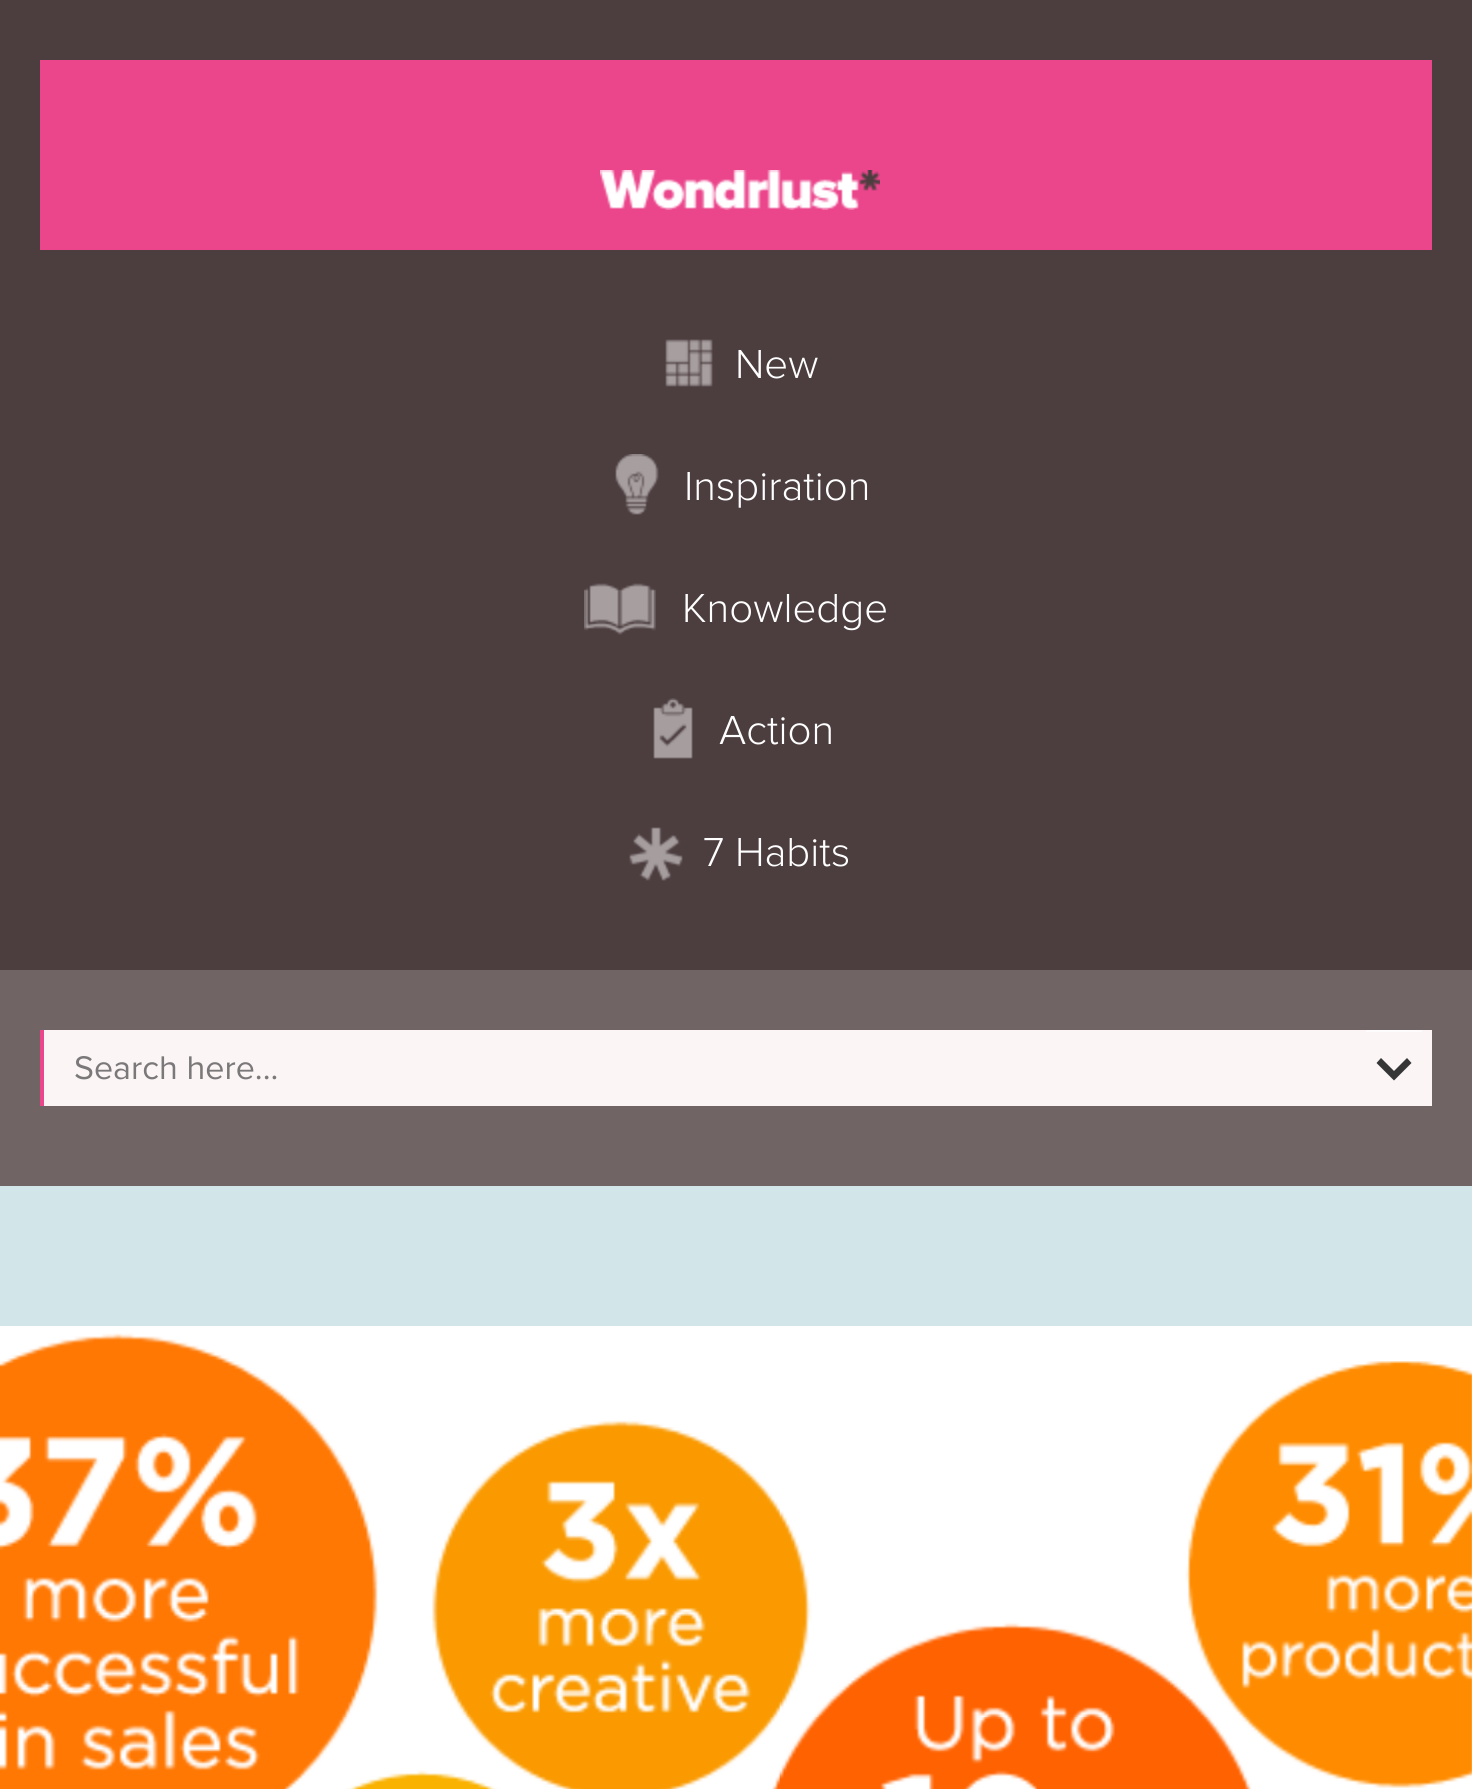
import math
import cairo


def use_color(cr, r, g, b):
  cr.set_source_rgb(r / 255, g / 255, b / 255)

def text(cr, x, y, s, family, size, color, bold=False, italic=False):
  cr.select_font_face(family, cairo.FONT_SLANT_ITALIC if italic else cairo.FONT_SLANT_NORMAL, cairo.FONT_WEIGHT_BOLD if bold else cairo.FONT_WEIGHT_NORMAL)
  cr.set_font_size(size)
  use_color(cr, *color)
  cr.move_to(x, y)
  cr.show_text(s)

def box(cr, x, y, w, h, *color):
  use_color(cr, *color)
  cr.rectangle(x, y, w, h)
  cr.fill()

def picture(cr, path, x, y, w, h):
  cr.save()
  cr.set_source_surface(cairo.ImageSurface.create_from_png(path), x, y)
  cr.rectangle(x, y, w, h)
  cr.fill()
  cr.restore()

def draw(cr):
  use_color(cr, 210, 229, 232)
  cr.paint()
  box(cr, 0, 0, 1472, 970, 76, 61, 63)
  box(cr, 40, 60, 1392, 190, 235, 70, 140)
  picture(cr, "img_01.png", 600, 170, 280, 40)
  picture(cr, "img_02.png", 665, 339, 48, 48)
  picture(cr, "img_03.png", 615, 454, 44, 61)
  picture(cr, "img_04.png", 584, 583, 72, 52)
  picture(cr, "img_05.png", 653, 698, 40, 61)
  picture(cr, "img_06.png", 629, 827, 54, 54)
  box(cr, 0, 970, 1472, 216, 112, 100, 101)
  box(cr, 44, 1030, 1388, 76, 251, 245, 246)
  box(cr, 40, 1030, 4, 76, 234, 70, 140)
  box(cr, 1366, 1030, 56, 2, 254, 251, 252)
  use_color(cr, 54, 54, 54)
  cr.new_path()
  cr.move_to(1407, 1058)
  cr.line_to(1411.5, 1063)
  cr.line_to(1394, 1080.5)
  cr.line_to(1376.5, 1063)
  cr.line_to(1381, 1058)
  cr.line_to(1394, 1071)
  cr.close_path()
  cr.fill()
  box(cr, 0, 1326, 1472, 463, 255, 255, 255)
  picture(cr, "img_07.png", 0, 1333, 1472, 456)
  text(cr, 735, 378, "New", "Proxima Nova Light", 42, (255, 255, 255))
  text(cr, 684, 500, "Inspiration", "Proxima Nova Light", 42, (255, 255, 255))
  text(cr, 682, 622, "Knowledge", "Proxima Nova Light", 42, (255, 255, 255))
  text(cr, 719, 744, "Action", "Proxima Nova Light", 42, (255, 255, 255))
  text(cr, 703, 866, "7 Habits", "Proxima Nova Light", 42, (255, 255, 255))
  text(cr, 74, 1079, "Search here...", "Proxima Nova", 34, (123, 120, 121))


surface = cairo.ImageSurface(cairo.FORMAT_RGB24, 1472, 1789)
cr = cairo.Context(surface)
options = cairo.FontOptions()
options.set_hint_metrics(cairo.HINT_METRICS_OFF)
options.set_hint_style(cairo.HINT_STYLE_NONE)
cr.set_font_options(options)
cr.set_miter_limit(4)
draw(cr)
surface.write_to_png("out.png")
